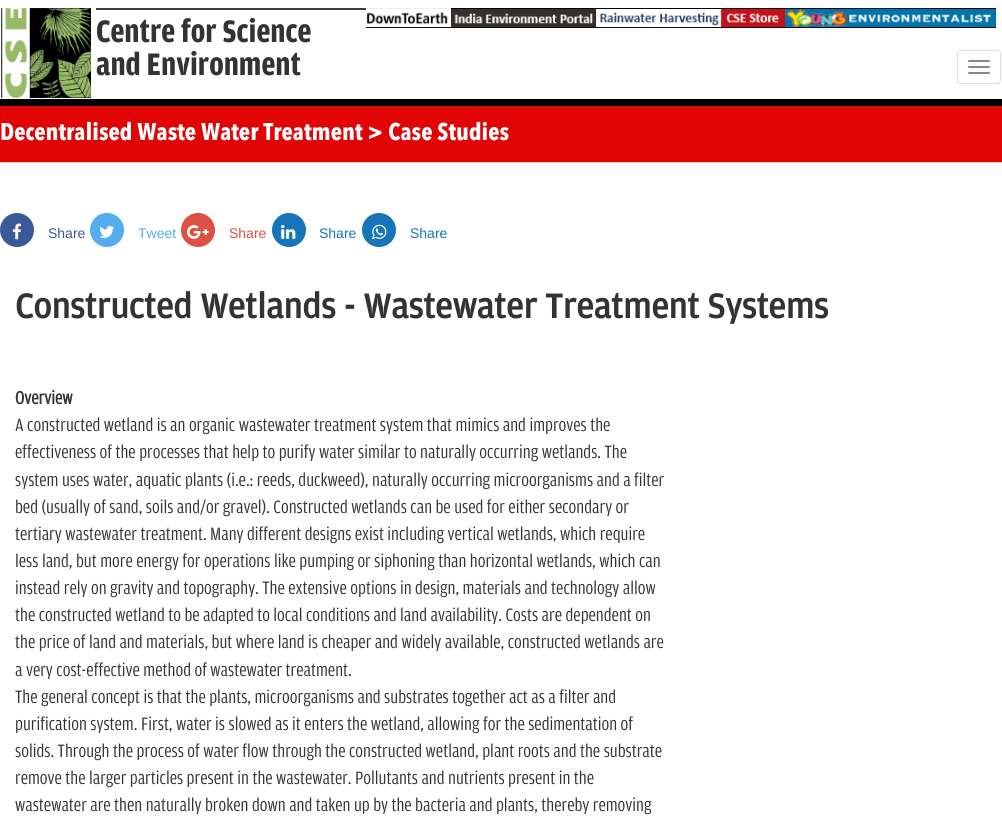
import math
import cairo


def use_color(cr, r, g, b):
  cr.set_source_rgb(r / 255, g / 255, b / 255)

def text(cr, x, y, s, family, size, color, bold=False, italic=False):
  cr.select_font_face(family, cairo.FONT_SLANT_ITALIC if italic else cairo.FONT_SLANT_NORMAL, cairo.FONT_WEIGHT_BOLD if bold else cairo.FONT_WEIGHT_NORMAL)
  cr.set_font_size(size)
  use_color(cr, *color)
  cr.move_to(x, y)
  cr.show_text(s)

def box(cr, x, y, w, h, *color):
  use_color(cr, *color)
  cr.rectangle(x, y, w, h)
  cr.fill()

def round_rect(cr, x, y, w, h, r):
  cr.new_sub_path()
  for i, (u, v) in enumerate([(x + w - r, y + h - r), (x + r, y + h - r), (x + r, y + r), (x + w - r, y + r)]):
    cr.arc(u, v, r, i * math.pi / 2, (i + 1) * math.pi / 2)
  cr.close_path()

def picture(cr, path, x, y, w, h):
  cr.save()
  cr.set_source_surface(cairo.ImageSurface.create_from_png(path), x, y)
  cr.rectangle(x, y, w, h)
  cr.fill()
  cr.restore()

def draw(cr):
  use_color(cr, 255, 255, 255)
  cr.paint()
  picture(cr, "img_01.png", 1, 8, 90, 90)
  box(cr, 96, 8, 270, 2, 63, 63, 63)
  picture(cr, "img_02.png", 366, 8, 630, 20)
  box(cr, 0, 99, 1002, 7, 0, 0, 0)
  round_rect(cr, 957.5, 50.5, 43, 33, 3.5)
  use_color(cr, 221, 221, 221)
  cr.set_line_width(1)
  cr.stroke()
  use_color(cr, 136, 136, 136)
  round_rect(cr, 968, 60, 22, 2, 1)
  cr.fill()
  round_rect(cr, 968, 66, 22, 2, 1)
  cr.fill()
  round_rect(cr, 968, 72, 22, 2, 1)
  cr.fill()
  box(cr, 0, 106, 1002, 56, 224, 4, 4)
  box(cr, 0, 162, 1002, 1, 203, 203, 203)
  use_color(cr, 59, 89, 152)
  cr.arc(17, 230, 17, 0, 2 * math.pi)
  cr.fill()
  picture(cr, "img_03.png", 12, 223, 9, 17)
  use_color(cr, 85, 172, 238)
  cr.arc(107, 230, 17, 0, 2 * math.pi)
  cr.fill()
  picture(cr, "img_04.png", 99, 226, 15, 12)
  use_color(cr, 221, 80, 68)
  cr.arc(198, 230, 17, 0, 2 * math.pi)
  cr.fill()
  picture(cr, "img_05.png", 187, 225, 22, 14)
  use_color(cr, 22, 116, 185)
  cr.arc(289, 230, 17, 0, 2 * math.pi)
  cr.fill()
  picture(cr, "img_06.png", 281, 225, 15, 14)
  cr.arc(379, 230, 17, 0, 2 * math.pi)
  cr.fill()
  picture(cr, "img_07.png", 372, 224, 15, 16)
  text(cr, 96, 42, "Centre for Science", "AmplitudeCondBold", 33, (51, 51, 51), bold=True)
  text(cr, 96, 75, "and Environment", "AmplitudeCondBold", 33, (51, 51, 51), bold=True)
  text(cr, 0, 140, "Decentralised Waste Water Treatment > Case Studies", "Avenir Next", 24, (255, 255, 255), bold=True)
  text(cr, 48, 238, "Share", "Liberation Sans", 14, (59, 89, 152))
  text(cr, 138, 238, "Tweet", "Liberation Sans", 14, (85, 172, 238))
  text(cr, 229, 238, "Share", "Liberation Sans", 14, (221, 80, 68))
  text(cr, 319, 238, "Share", "Liberation Sans", 14, (22, 116, 185))
  text(cr, 410, 238, "Share", "Liberation Sans", 14, (22, 116, 185))
  text(cr, 15, 318, "Constructed Wetlands - Wastewater Treatment Systems", "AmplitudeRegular", 36, (51, 51, 51), bold=True)
  text(cr, 15, 404, "Overview", "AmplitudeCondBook", 19, (51, 51, 51), bold=True)
  text(cr, 15, 431, "A constructed wetland is an organic wastewater treatment system that mimics and improves the", "AmplitudeCondBook", 19, (51, 51, 51))
  text(cr, 15, 458, "effectiveness of the processes that help to purify water similar to naturally occurring wetlands. The", "AmplitudeCondBook", 19, (51, 51, 51))
  text(cr, 15, 486, "system uses water, aquatic plants (i.e.: reeds, duckweed), naturally occurring microorganisms and a filter", "AmplitudeCondBook", 19, (51, 51, 51))
  text(cr, 15, 513, "bed (usually of sand, soils and/or gravel). Constructed wetlands can be used for either secondary or", "AmplitudeCondBook", 19, (51, 51, 51))
  text(cr, 15, 540, "tertiary wastewater treatment. Many different designs exist including vertical wetlands, which require", "AmplitudeCondBook", 19, (51, 51, 51))
  text(cr, 15, 567, "less land, but more energy for operations like pumping or siphoning than horizontal wetlands, which can", "AmplitudeCondBook", 19, (51, 51, 51))
  text(cr, 15, 594, "instead rely on gravity and topography. The extensive options in design, materials and technology allow", "AmplitudeCondBook", 19, (51, 51, 51))
  text(cr, 15, 621, "the constructed wetland to be adapted to local conditions and land availability. Costs are dependent on", "AmplitudeCondBook", 19, (51, 51, 51))
  text(cr, 15, 648, "the price of land and materials, but where land is cheaper and widely available, constructed wetlands are", "AmplitudeCondBook", 19, (51, 51, 51))
  text(cr, 15, 676, "a very cost-effective method of wastewater treatment.", "AmplitudeCondBook", 19, (51, 51, 51))
  text(cr, 15, 703, "The general concept is that the plants, microorganisms and substrates together act as a filter and", "AmplitudeCondBook", 19, (51, 51, 51))
  text(cr, 15, 730, "purification system. First, water is slowed as it enters the wetland, allowing for the sedimentation of", "AmplitudeCondBook", 19, (51, 51, 51))
  text(cr, 15, 757, "solids. Through the process of water flow through the constructed wetland, plant roots and the substrate", "AmplitudeCondBook", 19, (51, 51, 51))
  text(cr, 15, 784, "remove the larger particles present in the wastewater. Pollutants and nutrients present in the", "AmplitudeCondBook", 19, (51, 51, 51))
  text(cr, 15, 811, "wastewater are then naturally broken down and taken up by the bacteria and plants, thereby removing", "AmplitudeCondBook", 19, (51, 51, 51))


surface = cairo.ImageSurface(cairo.FORMAT_RGB24, 1002, 818)
cr = cairo.Context(surface)
options = cairo.FontOptions()
options.set_hint_metrics(cairo.HINT_METRICS_OFF)
options.set_hint_style(cairo.HINT_STYLE_NONE)
cr.set_font_options(options)
cr.set_miter_limit(4)
draw(cr)
surface.write_to_png("out.png")
